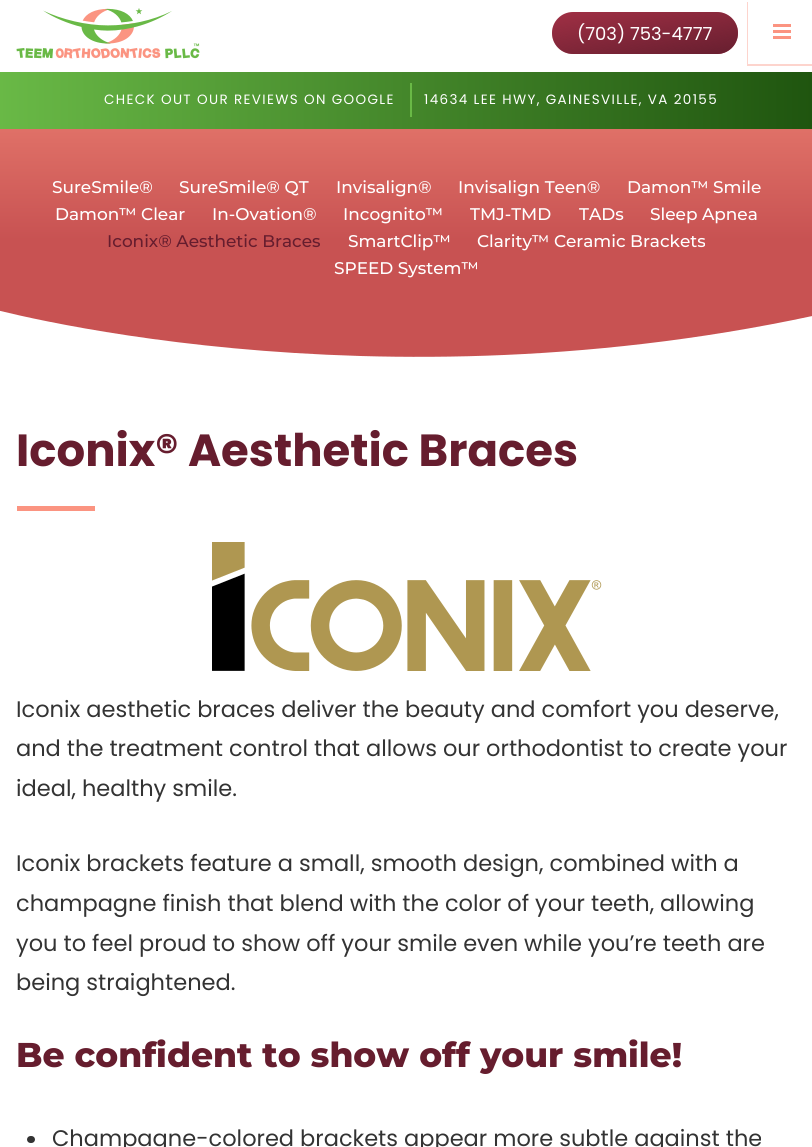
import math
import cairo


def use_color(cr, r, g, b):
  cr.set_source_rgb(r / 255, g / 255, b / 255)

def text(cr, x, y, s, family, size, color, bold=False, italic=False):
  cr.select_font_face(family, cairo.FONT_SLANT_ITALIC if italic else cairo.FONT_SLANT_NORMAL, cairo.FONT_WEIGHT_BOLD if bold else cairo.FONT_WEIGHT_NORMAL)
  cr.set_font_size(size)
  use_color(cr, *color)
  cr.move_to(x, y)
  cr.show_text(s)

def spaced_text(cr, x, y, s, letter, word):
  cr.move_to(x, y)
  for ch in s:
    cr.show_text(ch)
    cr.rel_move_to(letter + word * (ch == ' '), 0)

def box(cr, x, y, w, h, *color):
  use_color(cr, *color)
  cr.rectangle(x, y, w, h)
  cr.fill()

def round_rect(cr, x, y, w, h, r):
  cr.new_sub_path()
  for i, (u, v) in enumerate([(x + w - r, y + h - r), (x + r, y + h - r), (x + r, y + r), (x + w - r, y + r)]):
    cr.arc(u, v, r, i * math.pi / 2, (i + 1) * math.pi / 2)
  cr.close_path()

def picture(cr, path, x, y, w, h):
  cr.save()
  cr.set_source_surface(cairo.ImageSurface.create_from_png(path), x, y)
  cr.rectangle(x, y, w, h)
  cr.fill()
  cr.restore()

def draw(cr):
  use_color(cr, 255, 255, 255)
  cr.paint()
  picture(cr, "img_01.png", 16, 8, 184, 51)
  gradient = cairo.LinearGradient(0, 101, 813, 100)
  gradient.add_color_stop_rgba(0, 0.412, 0.725, 0.275, 1)
  gradient.add_color_stop_rgba(1, 0.122, 0.333, 0.059, 1)
  cr.set_source(gradient)
  cr.rectangle(0, 72, 812, 57)
  cr.fill()
  use_color(cr, 161, 48, 69)
  round_rect(cr, 552, 12, 186, 42, 21)
  cr.fill()
  gradient = cairo.LinearGradient(639, -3.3, 651, 69)
  gradient.add_color_stop_rgba(0, 0.4, 0.118, 0.184, 0)
  gradient.add_color_stop_rgba(1, 0.4, 0.118, 0.184, 1)
  cr.set_source(gradient)
  round_rect(cr, 552, 12, 186, 42, 21)
  cr.fill()
  box(cr, 410, 83, 2, 34, 105, 185, 70)
  use_color(cr, 253, 212, 205)
  cr.new_path()
  cr.move_to(747, 2)
  cr.line_to(747, 66)
  cr.line_to(812, 66)
  cr.line_to(812, 64)
  cr.line_to(748, 64)
  cr.line_to(748, 2)
  cr.close_path()
  cr.fill()
  box(cr, 773, 24, 18, 3, 251, 148, 129)
  box(cr, 773, 30, 18, 3, 251, 148, 129)
  box(cr, 773, 36, 18, 3, 251, 148, 129)
  gradient = cairo.LinearGradient(407, 0, 407, 362)
  gradient.add_color_stop_rgba(0, 0.984, 0.58, 0.502, 1)
  gradient.add_color_stop_rgba(0.66, 0.784, 0.322, 0.322, 1)
  gradient.add_color_stop_rgba(1, 0.784, 0.322, 0.322, 1)
  cr.set_source(gradient)
  cr.rectangle(0, 129, 812, 228)
  cr.fill()
  use_color(cr, 255, 255, 255)
  cr.set_fill_rule(cairo.FILL_RULE_EVEN_ODD)
  cr.new_path()
  cr.move_to(-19, 365)
  cr.line_to(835, 365)
  cr.line_to(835, 311)
  cr.curve_to(370, 417, -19, 306, -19, 306)
  cr.close_path()
  cr.fill()
  box(cr, 17, 506, 78, 5, 251, 148, 129)
  picture(cr, "img_02.png", 212, 542, 390, 129)
  use_color(cr, 51, 51, 51)
  round_rect(cr, 27, 1136, 8, 7, 3.5)
  cr.fill()
  cr.select_font_face("Poppins")
  cr.set_font_size(13.5)
  use_color(cr, 255, 255, 255)
  spaced_text(cr, 104, 104, "CHECK OUT OUR REVIEWS ON GOOGLE", 1.35, 0)
  text(cr, 577, 40, "(703) 753-4777", "Poppins", 18, (255, 255, 255))
  cr.set_font_size(13.5)
  spaced_text(cr, 424, 104, "14634 LEE HWY, GAINESVILLE, VA 20155", 1.35, 0)
  text(cr, 52, 193, "SureSmile®", "Montserrat Medium", 16.9, (255, 255, 255))
  text(cr, 179, 193, "SureSmile® QT", "Montserrat Medium", 16.9, (255, 255, 255))
  text(cr, 336, 193, "Invisalign®", "Montserrat Medium", 16.9, (255, 255, 255))
  text(cr, 458, 193, "Invisalign Teen®", "Montserrat Medium", 16.9, (255, 255, 255))
  text(cr, 627, 193, "Damon™ Smile", "Montserrat Medium", 16.9, (255, 255, 255))
  text(cr, 55, 220, "Damon™ Clear", "Montserrat Medium", 16.9, (255, 255, 255))
  text(cr, 212, 220, "In-Ovation®", "Montserrat Medium", 16.9, (255, 255, 255))
  text(cr, 343, 220, "Incognito™", "Montserrat Medium", 16.9, (255, 255, 255))
  text(cr, 470, 220, "TMJ-TMD", "Montserrat Medium", 16.9, (255, 255, 255))
  text(cr, 579, 220, "TADs", "Montserrat Medium", 16.9, (255, 255, 255))
  text(cr, 650, 220, "Sleep Apnea", "Montserrat Medium", 16.9, (255, 255, 255))
  text(cr, 107, 247, "Iconix® Aesthetic Braces", "Montserrat Medium", 16.9, (102, 29, 46))
  text(cr, 348, 247, "SmartClip™", "Montserrat Medium", 16.9, (255, 255, 255))
  text(cr, 477, 247, "Clarity™ Ceramic Brackets", "Montserrat Medium", 16.9, (255, 255, 255))
  text(cr, 334, 274, "SPEED System™", "Montserrat Medium", 16.9, (255, 255, 255))
  text(cr, 16, 466, "Iconix® Aesthetic Braces", "Poppins", 45, (102, 29, 46), bold=True)
  text(cr, 16, 717, "Iconix aesthetic braces deliver the beauty and comfort you deserve,", "Poppins", 22.5, (51, 51, 51))
  text(cr, 16, 756, "and the treatment control that allows our orthodontist to create your", "Poppins", 22.5, (51, 51, 51))
  text(cr, 16, 796, "ideal, healthy smile.", "Poppins", 22.5, (51, 51, 51))
  text(cr, 16, 871, "Iconix brackets feature a small, smooth design, combined with a", "Poppins", 22.5, (51, 51, 51))
  text(cr, 16, 911, "champagne finish that blend with the color of your teeth, allowing", "Poppins", 22.5, (51, 51, 51))
  text(cr, 16, 951, "you to feel proud to show off your smile even while you’re teeth are", "Poppins", 22.5, (51, 51, 51))
  text(cr, 16, 990, "being straightened.", "Poppins", 22.5, (51, 51, 51))
  text(cr, 16, 1067, "Be confident to show off your smile!", "Montserrat ExtraBold", 34.4, (102, 29, 46))
  text(cr, 52, 1146, "Champagne-colored brackets appear more subtle against the", "Poppins", 22.5, (51, 51, 51))


surface = cairo.ImageSurface(cairo.FORMAT_RGB24, 812, 1147)
cr = cairo.Context(surface)
options = cairo.FontOptions()
options.set_hint_metrics(cairo.HINT_METRICS_OFF)
options.set_hint_style(cairo.HINT_STYLE_NONE)
cr.set_font_options(options)
cr.set_miter_limit(4)
draw(cr)
surface.write_to_png("out.png")
